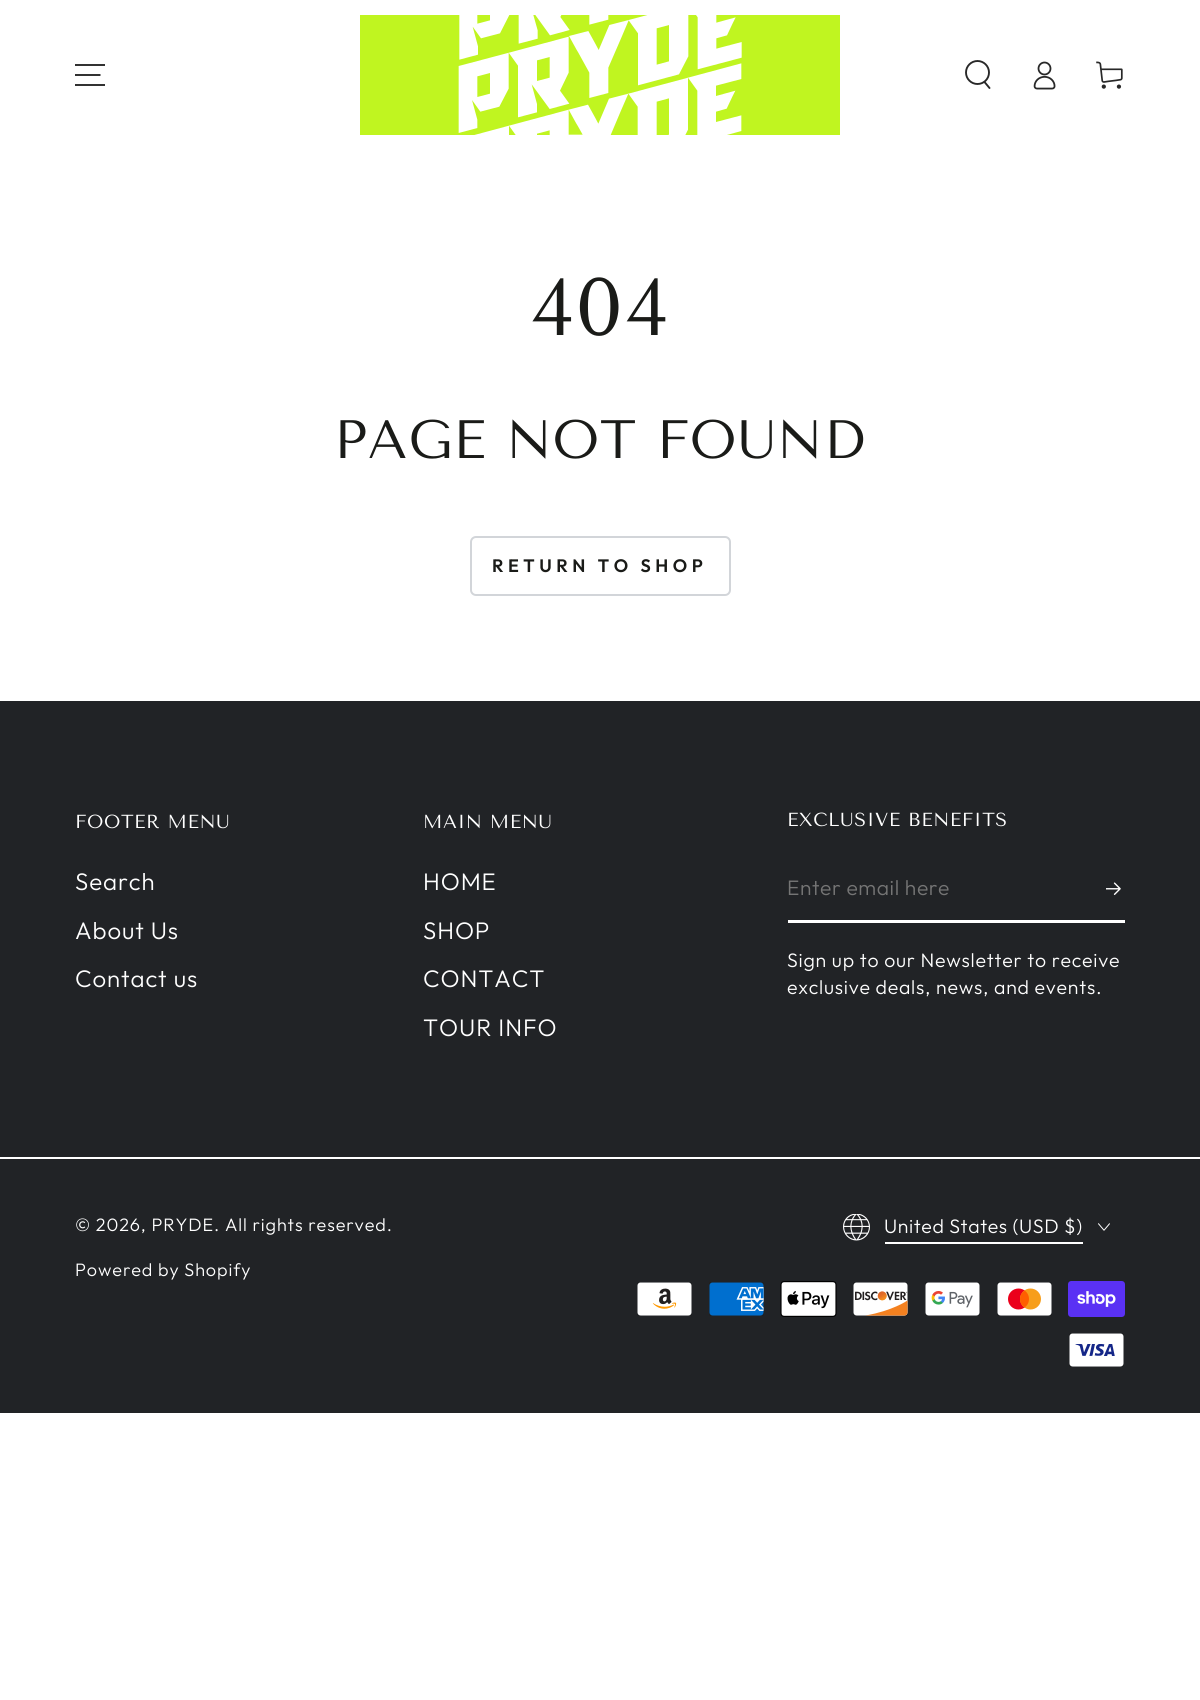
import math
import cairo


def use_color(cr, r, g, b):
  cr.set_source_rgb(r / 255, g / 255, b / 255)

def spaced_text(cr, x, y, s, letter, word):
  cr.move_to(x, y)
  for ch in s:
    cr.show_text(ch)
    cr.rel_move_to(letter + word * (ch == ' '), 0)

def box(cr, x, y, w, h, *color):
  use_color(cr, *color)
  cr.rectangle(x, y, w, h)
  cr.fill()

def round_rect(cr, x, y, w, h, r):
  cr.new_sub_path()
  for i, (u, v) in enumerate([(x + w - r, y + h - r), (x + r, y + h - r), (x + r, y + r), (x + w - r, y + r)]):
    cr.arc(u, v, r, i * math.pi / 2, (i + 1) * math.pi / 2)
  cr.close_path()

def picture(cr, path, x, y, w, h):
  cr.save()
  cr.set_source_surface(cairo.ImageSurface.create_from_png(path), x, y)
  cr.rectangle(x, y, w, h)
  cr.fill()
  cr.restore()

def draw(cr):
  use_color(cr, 255, 255, 255)
  cr.paint()
  cr.new_path()
  cr.move_to(75, 85)
  cr.line_to(105, 85)
  cr.move_to(75, 75)
  cr.line_to(100.5, 75)
  cr.move_to(75, 65)
  cr.line_to(105, 65)
  use_color(cr, 40, 40, 40)
  cr.set_line_width(1.9)
  cr.stroke()
  picture(cr, "img_01.png", 360, 15, 480, 120)
  cr.arc(977.5, 72.5, 11.5, 0, 2 * math.pi)
  cr.stroke()
  cr.new_path()
  cr.move_to(984.5, 82)
  cr.line_to(989.5, 88)
  cr.set_line_cap(cairo.LINE_CAP_ROUND)
  cr.stroke()
  picture(cr, "img_02.png", 1033, 61, 23, 29)
  picture(cr, "img_03.png", 1096, 61, 27, 28)
  round_rect(cr, 471, 537, 259, 58, 5)
  use_color(cr, 210, 213, 217)
  cr.set_line_width(2)
  cr.set_line_cap(cairo.LINE_CAP_BUTT)
  cr.stroke()
  box(cr, 0, 701, 1200, 712, 33, 35, 38)
  box(cr, 788, 920, 337, 3, 255, 255, 255)
  picture(cr, "img_04.png", 1106, 882, 15, 13)
  box(cr, 0, 1157, 1200, 2, 255, 255, 255)
  picture(cr, "img_05.png", 843, 1214, 27, 27)
  box(cr, 885, 1242, 198, 2, 255, 255, 255)
  picture(cr, "img_06.png", 1098, 1223, 12, 8)
  picture(cr, "img_07.png", 637, 1282, 55, 34)
  picture(cr, "img_08.png", 709, 1282, 55, 34)
  picture(cr, "img_09.png", 780, 1281, 57, 36)
  picture(cr, "img_10.png", 853, 1282, 55, 34)
  picture(cr, "img_11.png", 925, 1282, 55, 34)
  picture(cr, "img_12.png", 997, 1282, 55, 34)
  picture(cr, "img_13.png", 1068, 1281, 57, 36)
  picture(cr, "img_14.png", 1069, 1333, 55, 34)
  cr.select_font_face("Tenor Sans")
  cr.set_font_size(81)
  use_color(cr, 26, 27, 24)
  spaced_text(cr, 530, 335, "404", 0.75, 0)
  cr.set_font_size(54)
  spaced_text(cr, 334, 458, "PAGE NOT FOUND", 0.75, 0)
  cr.select_font_face("Outfit SemiBold")
  cr.set_font_size(18)
  spaced_text(cr, 492, 572, "RETURN TO SHOP", 4.5, 0)
  cr.select_font_face("Tenor Sans")
  cr.set_font_size(18.9)
  use_color(cr, 255, 255, 255)
  spaced_text(cr, 75, 828, "FOOTER MENU", 0.6, 0)
  cr.select_font_face("Outfit Light")
  cr.set_font_size(24)
  spaced_text(cr, 75, 890, "Search", 0.9, 0)
  spaced_text(cr, 75, 939, "About Us", 0.9, 0)
  spaced_text(cr, 75, 987, "Contact us", 0.9, 0)
  cr.select_font_face("Tenor Sans")
  cr.set_font_size(18.9)
  spaced_text(cr, 423, 828, "MAIN MENU", 0.6, 0)
  cr.select_font_face("Outfit Light")
  cr.set_font_size(24)
  spaced_text(cr, 423, 890, "HOME", 0.9, 0)
  spaced_text(cr, 423, 939, "SHOP", 0.9, 0)
  spaced_text(cr, 423, 987, "CONTACT", 0.9, 0)
  spaced_text(cr, 423, 1036, "TOUR INFO", 0.9, 0)
  cr.select_font_face("Tenor Sans")
  cr.set_font_size(18.9)
  spaced_text(cr, 787, 826, "EXCLUSIVE BENEFITS", 0.6, 0)
  cr.select_font_face("Outfit Light")
  cr.set_font_size(21)
  use_color(cr, 117, 117, 117)
  spaced_text(cr, 787, 895, "Enter email here", 0.6, 0)
  cr.set_font_size(19.5)
  use_color(cr, 255, 255, 255)
  spaced_text(cr, 787, 967, "Sign up to our Newsletter to receive", 0.75, 0)
  spaced_text(cr, 787, 994, "exclusive deals, news, and events.", 0.75, 0)
  cr.set_font_size(18)
  spaced_text(cr, 75, 1231, "© 2026, PRYDE. All rights reserved.", 0.9, 0)
  spaced_text(cr, 75, 1276, "Powered by Shopify", 0.9, 0)
  cr.set_font_size(19.5)
  spaced_text(cr, 884, 1233, "United States (USD $)", 0.6, 0)


surface = cairo.ImageSurface(cairo.FORMAT_RGB24, 1200, 1700)
cr = cairo.Context(surface)
options = cairo.FontOptions()
options.set_hint_metrics(cairo.HINT_METRICS_OFF)
options.set_hint_style(cairo.HINT_STYLE_NONE)
cr.set_font_options(options)
cr.set_miter_limit(4)
draw(cr)
surface.write_to_png("out.png")
